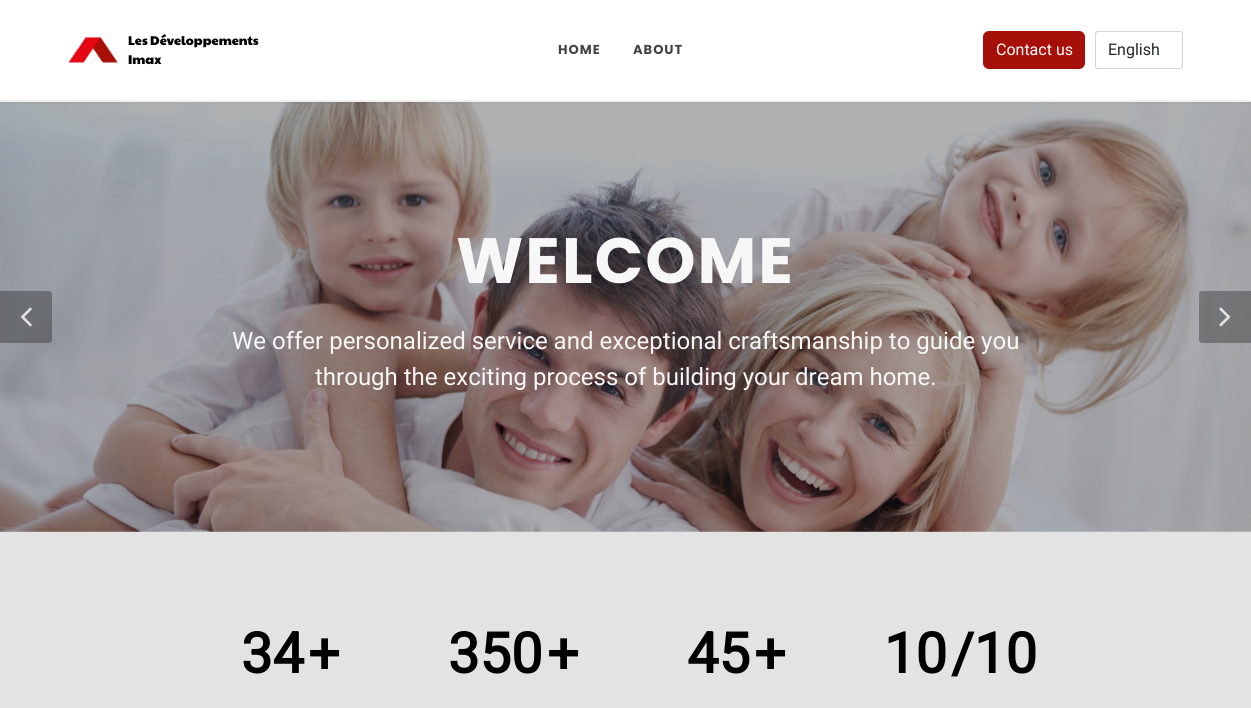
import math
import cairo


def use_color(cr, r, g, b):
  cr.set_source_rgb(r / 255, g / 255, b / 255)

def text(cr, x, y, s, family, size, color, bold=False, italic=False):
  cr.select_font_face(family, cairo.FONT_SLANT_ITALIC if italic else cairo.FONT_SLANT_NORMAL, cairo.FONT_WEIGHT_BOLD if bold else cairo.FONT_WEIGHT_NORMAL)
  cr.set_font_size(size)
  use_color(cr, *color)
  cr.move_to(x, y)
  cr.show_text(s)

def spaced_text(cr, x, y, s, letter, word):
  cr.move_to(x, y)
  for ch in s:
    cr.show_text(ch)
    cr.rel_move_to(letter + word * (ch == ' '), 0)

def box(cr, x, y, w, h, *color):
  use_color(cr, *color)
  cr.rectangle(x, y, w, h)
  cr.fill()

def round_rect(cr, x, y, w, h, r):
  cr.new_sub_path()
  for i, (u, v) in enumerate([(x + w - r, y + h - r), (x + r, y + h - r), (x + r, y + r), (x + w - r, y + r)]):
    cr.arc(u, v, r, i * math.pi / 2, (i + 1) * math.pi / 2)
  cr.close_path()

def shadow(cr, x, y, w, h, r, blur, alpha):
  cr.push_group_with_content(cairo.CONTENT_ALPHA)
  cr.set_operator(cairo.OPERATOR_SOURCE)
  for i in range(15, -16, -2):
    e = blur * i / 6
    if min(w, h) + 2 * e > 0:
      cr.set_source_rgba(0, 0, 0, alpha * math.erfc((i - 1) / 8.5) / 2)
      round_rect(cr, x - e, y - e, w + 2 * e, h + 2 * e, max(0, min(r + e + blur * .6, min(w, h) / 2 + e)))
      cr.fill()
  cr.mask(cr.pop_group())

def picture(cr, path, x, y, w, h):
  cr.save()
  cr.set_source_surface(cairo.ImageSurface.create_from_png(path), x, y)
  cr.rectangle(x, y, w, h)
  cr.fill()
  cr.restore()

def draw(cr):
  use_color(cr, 255, 255, 255)
  cr.paint()
  box(cr, 0, 101, 1251, 1, 245, 245, 245)
  picture(cr, "img_03.png", 0, 102, 1251, 430)
  cr.save()
  cr.rectangle(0, 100, 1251, 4)
  cr.clip()
  use_color(cr, 0, 0, 0)
  shadow(cr, 0, 0, 1251, 100, 0, 5, 0.1)
  cr.restore()
  picture(cr, "img_01.png", 68, 37, 50, 26)
  use_color(cr, 167, 16, 9)
  round_rect(cr, 983.5, 31.5, 101, 37, 5.5)
  cr.fill_preserve()
  cr.set_line_width(1)
  cr.stroke()
  round_rect(cr, 1095.5, 31.5, 87, 37, 2.5)
  use_color(cr, 206, 212, 218)
  cr.stroke()
  cr.set_source_rgba(0, 0, 0, 0.3)
  cr.new_path()
  cr.move_to(0, 291)
  cr.line_to(49, 291)
  cr.curve_to(50.5, 291, 52, 292.5, 52, 294)
  cr.line_to(52, 340)
  cr.curve_to(52, 341.5, 50.5, 343, 49, 343)
  cr.line_to(0, 343)
  cr.close_path()
  cr.fill()
  picture(cr, "img_02.png", 20, 307, 12, 20)
  cr.new_path()
  cr.move_to(1202, 291)
  cr.line_to(1251, 291)
  cr.line_to(1251, 343)
  cr.line_to(1202, 343)
  cr.curve_to(1200.5, 343, 1199, 341.5, 1199, 340)
  cr.line_to(1199, 294)
  cr.curve_to(1199, 292.5, 1200.5, 291, 1202, 291)
  cr.close_path()
  cr.fill()
  picture(cr, "img_04.png", 1219, 307, 12, 20)
  box(cr, 0, 532, 1251, 176, 227, 227, 227)
  text(cr, 128, 45, "Les Développements", "Paytone One", 12.75, (0, 0, 0))
  text(cr, 128, 64, "Imax", "Paytone One", 12.75, (0, 0, 0))
  cr.select_font_face("Poppins", cairo.FONT_SLANT_NORMAL, cairo.FONT_WEIGHT_BOLD)
  cr.set_font_size(13)
  use_color(cr, 68, 68, 68)
  spaced_text(cr, 558, 54, "HOME", 1, 0)
  spaced_text(cr, 633, 54, "ABOUT", 1, 0)
  text(cr, 996, 55, "Contact us", "Roboto", 16, (255, 255, 255))
  text(cr, 1108, 55, "English", "Roboto", 16, (33, 37, 41))
  cr.select_font_face("Poppins", cairo.FONT_SLANT_NORMAL, cairo.FONT_WEIGHT_BOLD)
  cr.set_font_size(64)
  use_color(cr, 247, 247, 247)
  spaced_text(cr, 456, 283, "WELCOME", 2, 0)
  text(cr, 232, 349, "We offer personalized service and exceptional craftsmanship to guide you", "Roboto", 24, (247, 247, 247))
  text(cr, 315, 385, "through the exciting process of building your dream home.", "Roboto", 24, (247, 247, 247))
  text(cr, 241, 673, "34", "Roboto", 56, (0, 0, 0), bold=True)
  text(cr, 308, 673, "+", "Roboto", 56, (0, 0, 0), bold=True)
  text(cr, 448, 673, "350", "Roboto", 56, (0, 0, 0), bold=True)
  text(cr, 547, 673, "+", "Roboto", 56, (0, 0, 0), bold=True)
  text(cr, 687, 673, "45", "Roboto", 56, (0, 0, 0), bold=True)
  text(cr, 754, 673, "+", "Roboto", 56, (0, 0, 0), bold=True)
  text(cr, 884, 673, "10", "Roboto", 56, (0, 0, 0), bold=True)
  text(cr, 951, 673, "/10", "Roboto", 56, (0, 0, 0), bold=True)


surface = cairo.ImageSurface(cairo.FORMAT_RGB24, 1251, 708)
cr = cairo.Context(surface)
options = cairo.FontOptions()
options.set_hint_metrics(cairo.HINT_METRICS_OFF)
options.set_hint_style(cairo.HINT_STYLE_NONE)
cr.set_font_options(options)
cr.set_miter_limit(4)
draw(cr)
surface.write_to_png("out.png")
